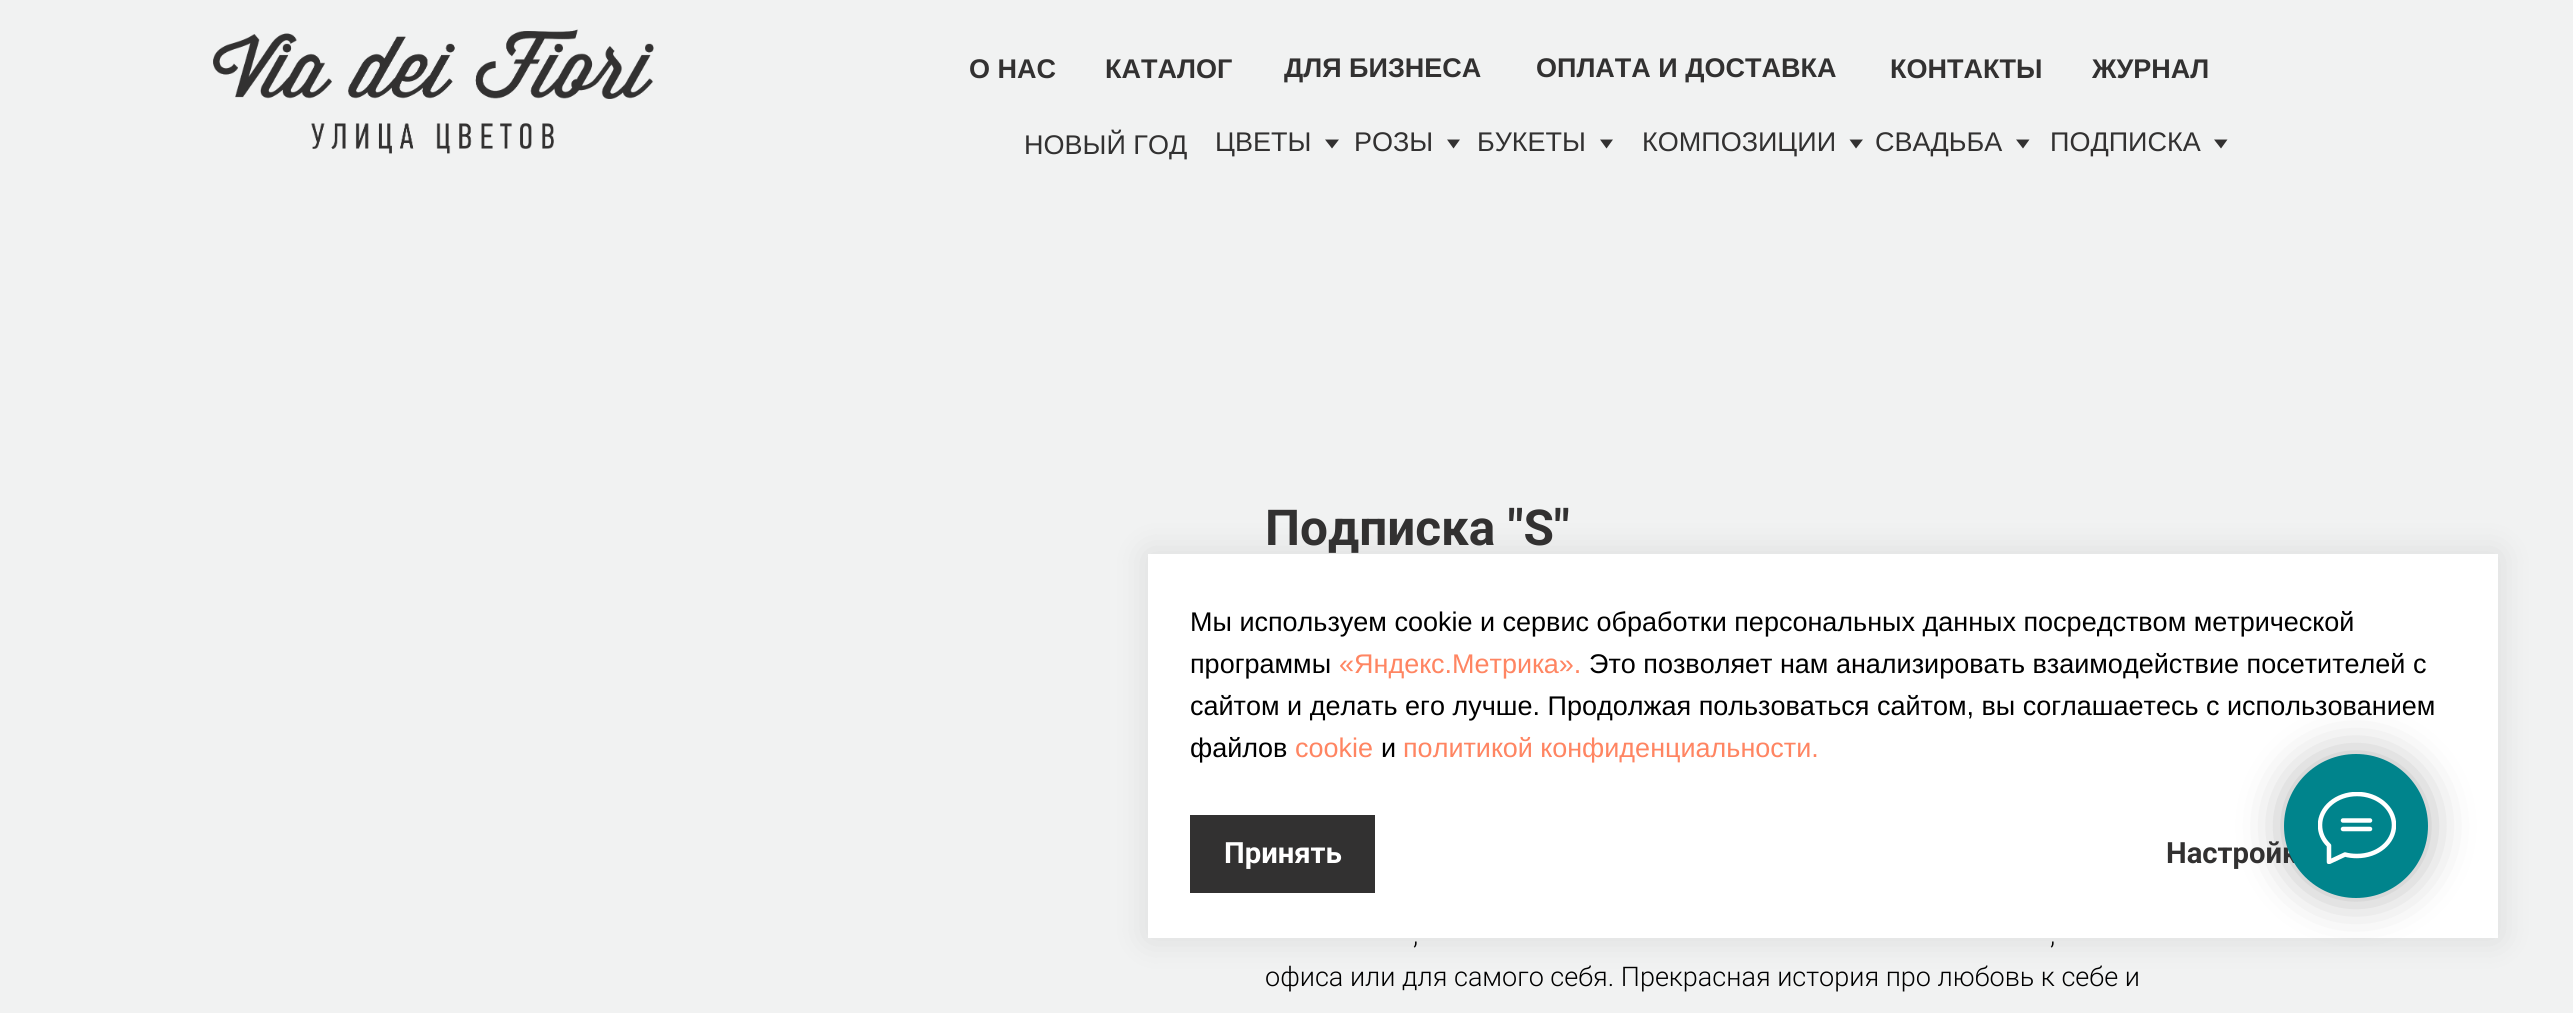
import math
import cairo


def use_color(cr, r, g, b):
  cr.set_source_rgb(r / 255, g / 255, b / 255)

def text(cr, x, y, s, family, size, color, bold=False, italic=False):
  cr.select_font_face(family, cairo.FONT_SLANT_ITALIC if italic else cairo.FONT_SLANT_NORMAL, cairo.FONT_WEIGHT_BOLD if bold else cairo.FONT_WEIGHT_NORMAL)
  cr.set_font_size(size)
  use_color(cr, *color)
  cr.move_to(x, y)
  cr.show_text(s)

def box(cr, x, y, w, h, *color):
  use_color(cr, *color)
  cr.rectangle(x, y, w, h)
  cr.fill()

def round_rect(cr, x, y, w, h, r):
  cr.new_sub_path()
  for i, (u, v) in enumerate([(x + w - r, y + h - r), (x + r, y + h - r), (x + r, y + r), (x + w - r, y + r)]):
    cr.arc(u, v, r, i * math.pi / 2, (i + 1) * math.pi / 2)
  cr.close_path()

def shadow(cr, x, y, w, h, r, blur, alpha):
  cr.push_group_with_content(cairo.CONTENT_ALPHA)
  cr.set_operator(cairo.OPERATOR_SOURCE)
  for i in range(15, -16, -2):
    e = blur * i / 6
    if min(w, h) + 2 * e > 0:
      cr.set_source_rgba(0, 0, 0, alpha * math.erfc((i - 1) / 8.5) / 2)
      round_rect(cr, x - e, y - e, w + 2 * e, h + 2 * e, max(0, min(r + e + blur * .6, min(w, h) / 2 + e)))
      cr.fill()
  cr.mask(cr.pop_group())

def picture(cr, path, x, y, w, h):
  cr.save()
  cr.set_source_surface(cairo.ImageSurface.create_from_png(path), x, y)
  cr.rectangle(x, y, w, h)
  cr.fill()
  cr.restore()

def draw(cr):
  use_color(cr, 241, 242, 242)
  cr.paint()
  picture(cr, "img_01.png", 213, 29, 441, 125)
  use_color(cr, 50, 49, 49)
  cr.new_path()
  cr.move_to(1325, 139.5)
  cr.line_to(1339, 139.5)
  cr.line_to(1332, 148.5)
  cr.close_path()
  cr.fill()
  cr.new_path()
  cr.move_to(1447, 139.5)
  cr.line_to(1460, 139.5)
  cr.line_to(1453.5, 148.5)
  cr.close_path()
  cr.fill()
  cr.new_path()
  cr.move_to(1600, 139.5)
  cr.line_to(1613, 139.5)
  cr.line_to(1606.5, 148.5)
  cr.close_path()
  cr.fill()
  cr.new_path()
  cr.move_to(1849.5, 139.5)
  cr.line_to(1863, 139.5)
  cr.line_to(1856, 148.5)
  cr.close_path()
  cr.fill()
  cr.new_path()
  cr.move_to(2016, 139.5)
  cr.line_to(2029.5, 139.5)
  cr.line_to(2023, 148.5)
  cr.close_path()
  cr.fill()
  cr.new_path()
  cr.move_to(2214, 139.5)
  cr.line_to(2227.5, 139.5)
  cr.line_to(2221, 148.5)
  cr.close_path()
  cr.fill()
  use_color(cr, 0, 0, 0)
  shadow(cr, 1148, 554, 1350, 384, 0, 17, 0.1)
  box(cr, 1148, 554, 1350, 384, 255, 255, 255)
  box(cr, 1190, 815, 185, 78, 50, 49, 49)
  use_color(cr, 0, 0, 0)
  shadow(cr, 2284, 754, 144, 144, 72, 22.5, 0.3)
  text(cr, 969, 78, "О НАС", "Liberation Sans", 27, (50, 49, 49), bold=True)
  text(cr, 1105, 78, "КАТАЛОГ", "Liberation Sans", 27, (50, 49, 49), bold=True)
  text(cr, 1284, 77, "ДЛЯ БИЗНЕСА", "Liberation Sans", 27, (50, 49, 49), bold=True)
  text(cr, 1536, 77, "ОПЛАТА И ДОСТАВКА", "Liberation Sans", 27, (50, 49, 49), bold=True)
  text(cr, 1890, 78, "КОНТАКТЫ", "Liberation Sans", 27, (50, 49, 49), bold=True)
  text(cr, 2092, 78, "ЖУРНАЛ", "Liberation Sans", 27, (50, 49, 49), bold=True)
  text(cr, 1024, 154, "НОВЫЙ ГОД", "Liberation Sans", 27, (50, 49, 49))
  text(cr, 1215, 151, "ЦВЕТЫ", "Liberation Sans", 27, (50, 49, 49))
  text(cr, 1354, 151, "РОЗЫ", "Liberation Sans", 27, (50, 49, 49))
  text(cr, 1477, 151, "БУКЕТЫ", "Liberation Sans", 27, (50, 49, 49))
  text(cr, 1642, 151, "КОМПОЗИЦИИ", "Liberation Sans", 27, (50, 49, 49))
  text(cr, 1875, 151, "СВАДЬБА", "Liberation Sans", 27, (50, 49, 49))
  text(cr, 2050, 151, "ПОДПИСКА", "Liberation Sans", 27, (50, 49, 49))
  text(cr, 1265, 545, "Подписка \"S\"", "Roboto", 49.5, (50, 49, 49), bold=True)
  text(cr, 1413, 944, ",", "Roboto Light", 27, (0, 0, 0))
  text(cr, 2050, 944, ",", "Roboto Light", 27, (0, 0, 0))
  text(cr, 1265, 986, "офиса или для самого себя. Прекрасная история про любовь к себе и", "Roboto Light", 27, (0, 0, 0))
  text(cr, 1190, 631, "Мы используем cookie и сервис обработки персональных данных посредством метрической", "Liberation Sans", 27, (0, 0, 0))
  text(cr, 1190, 673, "программы", "Liberation Sans", 27, (0, 0, 0))
  text(cr, 1339, 673, "«Яндекс.Метрика».", "Liberation Sans", 27, (255, 133, 98))
  text(cr, 1589, 673, "Это позволяет нам анализировать взаимодействие посетителей с", "Liberation Sans", 27, (0, 0, 0))
  text(cr, 1190, 715, "сайтом и делать его лучше. Продолжая пользоваться сайтом, вы соглашаетесь с использованием", "Liberation Sans", 27, (0, 0, 0))
  text(cr, 1190, 757, "файлов", "Liberation Sans", 27, (0, 0, 0))
  text(cr, 1295, 757, "cookie", "Liberation Sans", 27, (255, 133, 98))
  text(cr, 1381, 757, "и", "Liberation Sans", 27, (0, 0, 0))
  text(cr, 1403, 757, "политикой конфиденциальности.", "Liberation Sans", 27, (255, 133, 98))
  text(cr, 1224, 863, "Принять", "Roboto", 29.25, (255, 255, 255), bold=True)
  text(cr, 2166, 863, "Настройк", "Roboto", 29.25, (50, 49, 49), bold=True)
  use_color(cr, 0, 132, 140)
  cr.new_path()
  cr.arc(2356, 826, 69.5, 0, 2 * math.pi)
  cr.fill_preserve()
  cr.set_line_width(5)
  cr.stroke()
  cr.save()
  cr.rectangle(2318, 792, 78, 72)
  cr.clip()
  cr.new_path()
  cr.move_to(2343, 820.5)
  cr.line_to(2370, 820.5)
  cr.move_to(2343, 829)
  cr.line_to(2370, 829)
  cr.move_to(2328.5, 845)
  cr.curve_to(2323, 839.5, 2320, 833, 2320, 825)
  cr.curve_to(2320, 808, 2336.5, 794, 2357, 794)
  cr.curve_to(2377.5, 794, 2394, 808, 2394, 825)
  cr.curve_to(2394, 842.5, 2377.5, 856, 2357, 856)
  cr.curve_to(2352.5, 856, 2348.5, 855.5, 2345, 854.5)
  cr.line_to(2329, 862)
  cr.line_to(2329, 845.5)
  cr.close_path()
  use_color(cr, 255, 255, 255)
  cr.set_line_width(4.5)
  cr.set_line_cap(cairo.LINE_CAP_ROUND)
  cr.set_line_join(cairo.LINE_JOIN_ROUND)
  cr.stroke()
  cr.restore()


surface = cairo.ImageSurface(cairo.FORMAT_RGB24, 2573, 1013)
cr = cairo.Context(surface)
options = cairo.FontOptions()
options.set_hint_metrics(cairo.HINT_METRICS_OFF)
options.set_hint_style(cairo.HINT_STYLE_NONE)
cr.set_font_options(options)
cr.set_miter_limit(4)
draw(cr)
surface.write_to_png("out.png")
